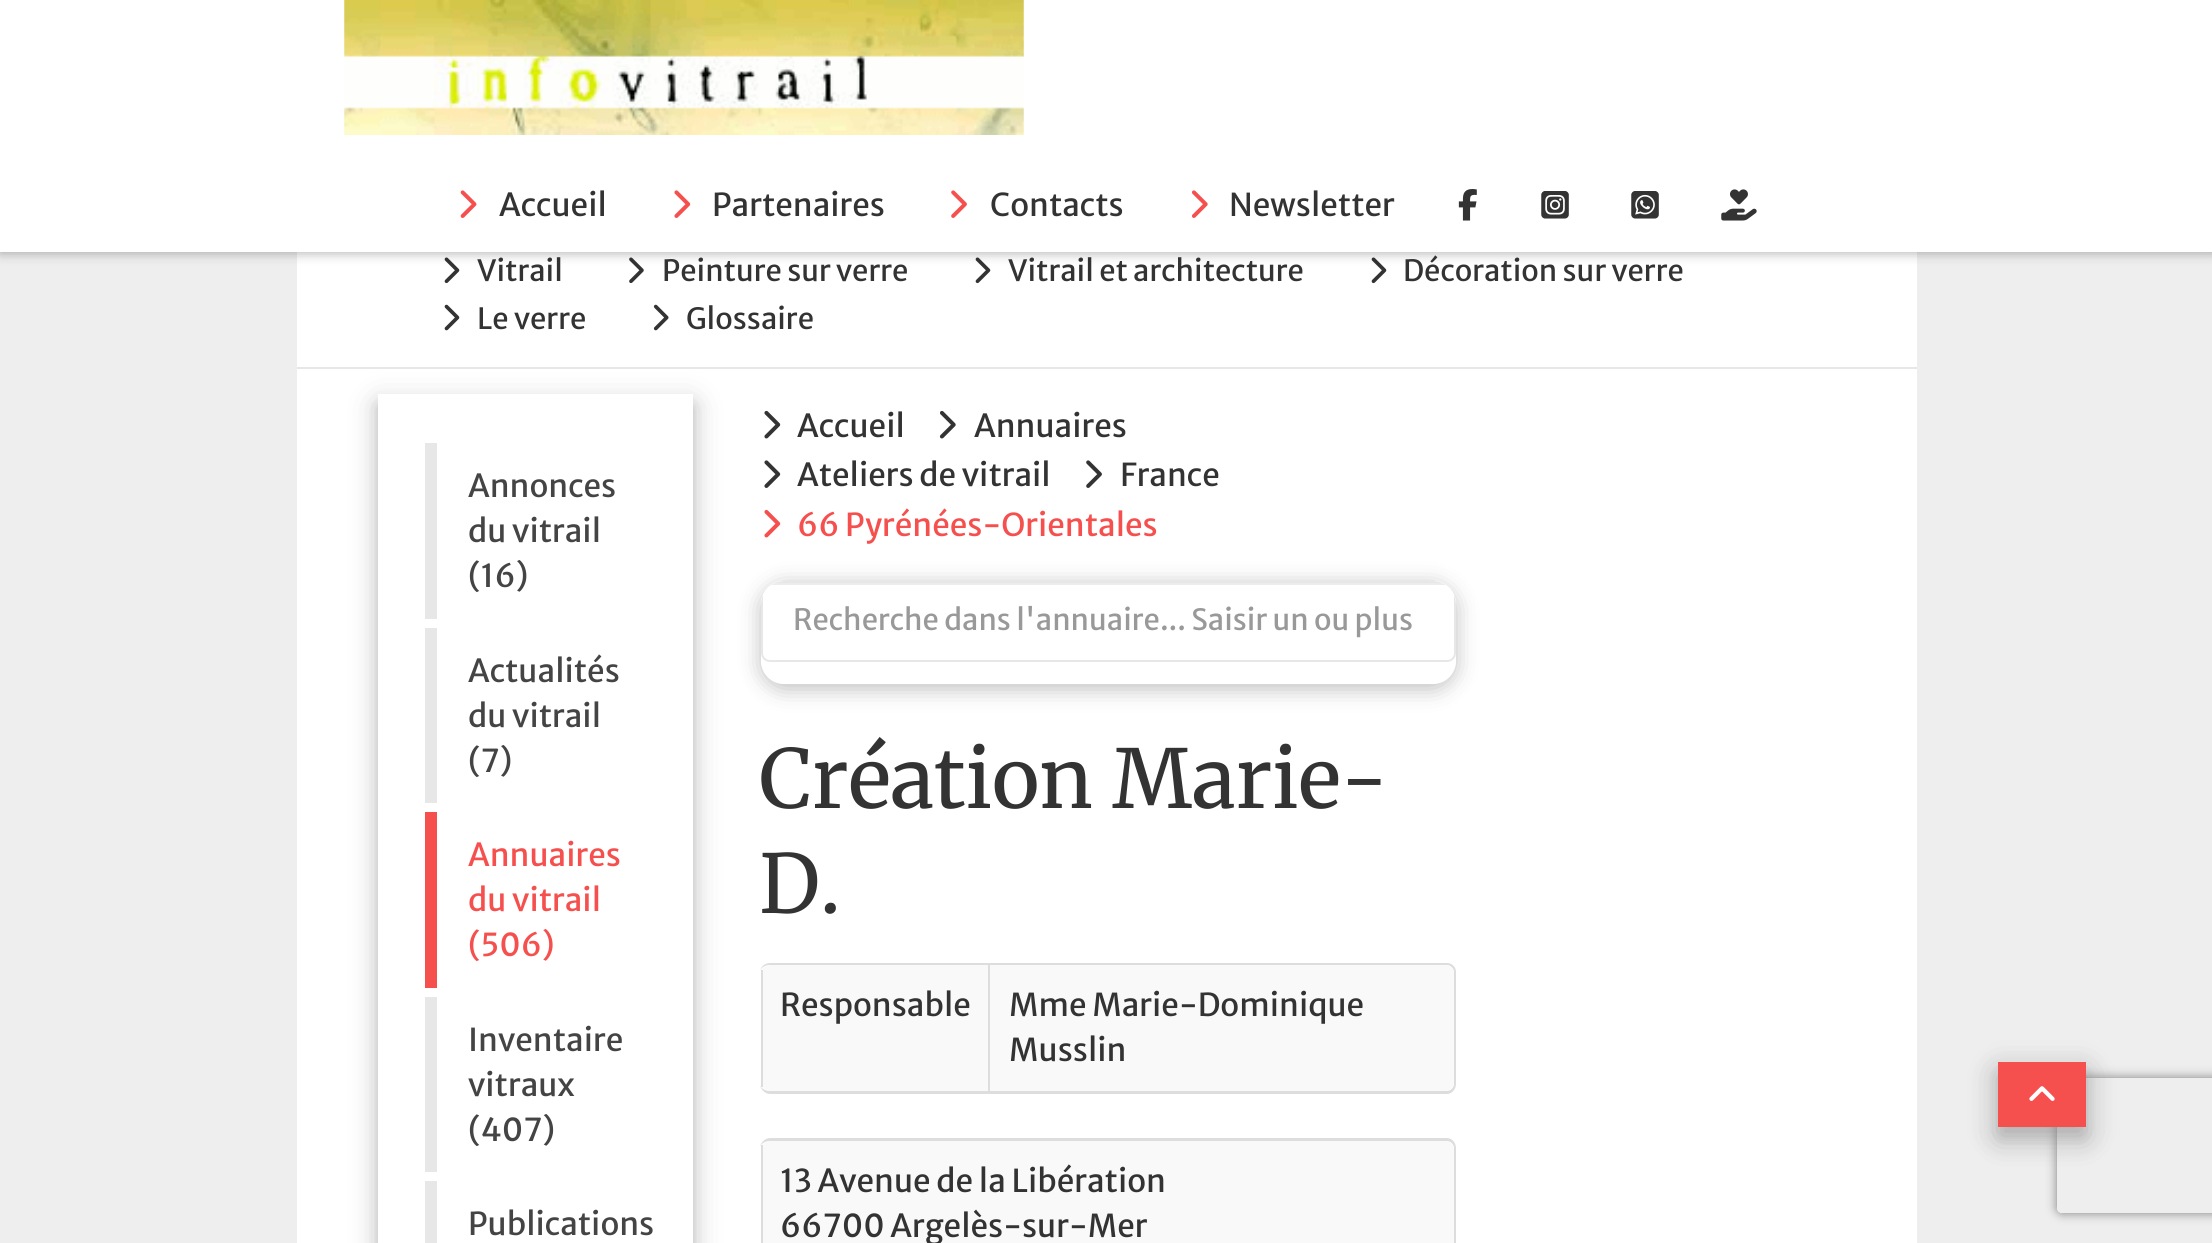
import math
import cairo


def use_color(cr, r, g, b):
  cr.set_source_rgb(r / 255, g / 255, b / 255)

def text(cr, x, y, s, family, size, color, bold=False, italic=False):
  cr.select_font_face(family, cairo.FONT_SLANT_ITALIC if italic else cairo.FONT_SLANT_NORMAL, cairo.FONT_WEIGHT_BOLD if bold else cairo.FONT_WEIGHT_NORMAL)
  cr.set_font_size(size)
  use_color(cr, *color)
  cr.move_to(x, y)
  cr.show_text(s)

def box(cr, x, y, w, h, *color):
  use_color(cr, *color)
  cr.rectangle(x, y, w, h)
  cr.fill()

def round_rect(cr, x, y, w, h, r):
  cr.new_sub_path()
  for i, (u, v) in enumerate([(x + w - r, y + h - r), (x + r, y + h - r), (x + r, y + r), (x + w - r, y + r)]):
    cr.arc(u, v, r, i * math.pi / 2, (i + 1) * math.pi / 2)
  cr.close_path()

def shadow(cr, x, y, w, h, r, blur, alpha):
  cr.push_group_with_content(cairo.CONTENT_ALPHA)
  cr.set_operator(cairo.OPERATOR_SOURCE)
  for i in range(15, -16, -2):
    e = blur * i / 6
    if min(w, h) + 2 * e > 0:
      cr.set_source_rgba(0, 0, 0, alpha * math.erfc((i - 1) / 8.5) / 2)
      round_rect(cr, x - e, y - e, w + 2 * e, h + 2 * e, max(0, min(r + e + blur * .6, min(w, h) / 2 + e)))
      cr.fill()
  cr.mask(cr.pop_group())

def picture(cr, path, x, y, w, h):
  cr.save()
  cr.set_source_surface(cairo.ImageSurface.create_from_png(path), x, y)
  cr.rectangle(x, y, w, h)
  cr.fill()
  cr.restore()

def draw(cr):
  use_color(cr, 238, 238, 238)
  cr.paint()
  box(cr, 297, 252, 1620, 115, 255, 255, 255)
  picture(cr, "img_10.png", 444, 257, 16, 27)
  picture(cr, "img_11.png", 629, 257, 15, 26)
  picture(cr, "img_10.png", 975, 257, 16, 27)
  picture(cr, "img_10.png", 1371, 257, 16, 27)
  use_color(cr, 0, 0, 0)
  shadow(cr, 0, 2, 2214, 252, 0, 5.5, 0.27)
  box(cr, 0, 0, 2212, 252, 255, 255, 255)
  picture(cr, "img_01.png", 344, 0, 680, 135)
  picture(cr, "img_02.png", 460, 190, 17, 28)
  picture(cr, "img_03.png", 674, 190, 17, 28)
  picture(cr, "img_04.png", 951, 190, 16, 28)
  picture(cr, "img_05.png", 1191, 190, 17, 28)
  picture(cr, "img_06.png", 1458, 189, 19, 32)
  picture(cr, "img_07.png", 1541, 191, 28, 28)
  picture(cr, "img_08.png", 1631, 191, 28, 28)
  picture(cr, "img_09.png", 1721, 189, 36, 32)
  box(cr, 297, 367, 1620, 2, 231, 231, 231)
  picture(cr, "img_12.png", 444, 304, 16, 27)
  picture(cr, "img_13.png", 653, 304, 16, 27)
  box(cr, 297, 369, 1620, 874, 255, 255, 255)
  cr.save()
  cr.set_fill_rule(cairo.FILL_RULE_EVEN_ODD)
  cr.new_path()
  cr.move_to(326, 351)
  cr.line_to(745, 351)
  cr.line_to(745, 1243)
  cr.line_to(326, 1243)
  cr.close_path()
  cr.move_to(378, 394)
  cr.line_to(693, 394)
  cr.line_to(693, 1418)
  cr.line_to(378, 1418)
  cr.close_path()
  cr.clip()
  use_color(cr, 0, 0, 0)
  shadow(cr, 378, 403, 315, 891, 0, 17, 0.15)
  cr.restore()
  cr.save()
  cr.set_fill_rule(cairo.FILL_RULE_EVEN_ODD)
  cr.new_path()
  cr.move_to(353, 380)
  cr.line_to(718, 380)
  cr.line_to(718, 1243)
  cr.line_to(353, 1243)
  cr.close_path()
  cr.move_to(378, 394)
  cr.line_to(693, 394)
  cr.line_to(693, 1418)
  cr.line_to(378, 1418)
  cr.close_path()
  cr.clip()
  use_color(cr, 0, 0, 0)
  shadow(cr, 378, 405, 315, 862, 0, 8, 0.18)
  cr.restore()
  box(cr, 425, 443, 12, 176, 231, 231, 231)
  box(cr, 425, 628, 12, 175, 231, 231, 231)
  box(cr, 425, 812, 12, 176, 245, 80, 78)
  box(cr, 425, 997, 12, 175, 231, 231, 231)
  box(cr, 425, 1181, 12, 62, 231, 231, 231)
  picture(cr, "img_14.png", 764, 410, 17, 29)
  picture(cr, "img_15.png", 939, 410, 17, 29)
  picture(cr, "img_16.png", 764, 460, 17, 28)
  picture(cr, "img_17.png", 1086, 460, 16, 28)
  picture(cr, "img_18.png", 764, 509, 17, 29)
  cr.save()
  cr.set_fill_rule(cairo.FILL_RULE_EVEN_ODD)
  cr.new_path()
  cr.move_to(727, 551)
  cr.line_to(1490, 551)
  cr.line_to(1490, 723)
  cr.line_to(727, 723)
  cr.close_path()
  cr.move_to(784, 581)
  cr.line_to(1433, 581)
  cr.curve_to(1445.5, 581, 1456, 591.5, 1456, 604)
  cr.line_to(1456, 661)
  cr.curve_to(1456, 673.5, 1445.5, 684, 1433, 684)
  cr.line_to(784, 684)
  cr.curve_to(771.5, 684, 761, 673.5, 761, 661)
  cr.line_to(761, 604)
  cr.curve_to(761, 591.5, 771.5, 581, 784, 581)
  cr.close_path()
  cr.clip()
  use_color(cr, 0, 0, 0)
  shadow(cr, 761, 585, 695, 104, 23, 11, 0.25)
  cr.restore()
  cr.save()
  round_rect(cr, 761, 581, 695, 103, 23)
  cr.clip()
  use_color(cr, 255, 255, 255)
  cr.new_path()
  cr.move_to(784, 581)
  cr.line_to(1433, 581)
  cr.curve_to(1445.5, 581, 1456, 591.5, 1456, 604)
  cr.line_to(1456, 653)
  cr.curve_to(1456, 658, 1452, 662, 1447, 662)
  cr.line_to(770, 662)
  cr.curve_to(765, 662, 761, 658, 761, 653)
  cr.line_to(761, 604)
  cr.curve_to(761, 591.5, 771.5, 581, 784, 581)
  cr.close_path()
  cr.fill()
  cr.restore()
  use_color(cr, 236, 236, 236)
  cr.new_path()
  cr.move_to(1442, 583)
  cr.line_to(775, 583)
  cr.line_to(771, 585)
  cr.line_to(1446, 585)
  cr.close_path()
  cr.fill()
  use_color(cr, 231, 231, 231)
  cr.set_fill_rule(cairo.FILL_RULE_EVEN_ODD)
  cr.new_path()
  cr.move_to(761, 604)
  cr.line_to(761, 653)
  cr.curve_to(761, 658, 765, 662, 770, 662)
  cr.line_to(1447, 662)
  cr.curve_to(1452, 662, 1456, 658, 1456, 653)
  cr.line_to(1456, 604)
  cr.curve_to(1456, 601, 1455, 597, 1454, 595)
  cr.line_to(1454, 653)
  cr.curve_to(1454, 657, 1451, 660, 1447, 660)
  cr.line_to(770, 660)
  cr.curve_to(766, 660, 763, 657, 763, 653)
  cr.line_to(763, 595)
  cr.curve_to(762, 597, 761, 601, 761, 604)
  cr.close_path()
  cr.move_to(784, 581)
  cr.curve_to(781, 581, 777, 582, 775, 583)
  cr.line_to(1442, 583)
  cr.curve_to(1440, 582, 1436, 581, 1433, 581)
  cr.close_path()
  cr.fill()
  use_color(cr, 221, 221, 221)
  cr.new_path()
  cr.move_to(770, 963)
  cr.line_to(1447, 963)
  cr.curve_to(1452, 963, 1456, 967, 1456, 972)
  cr.line_to(1456, 1084)
  cr.curve_to(1456, 1089, 1452, 1094, 1447, 1094)
  cr.line_to(770, 1094)
  cr.curve_to(765, 1094, 760, 1089, 760, 1084)
  cr.line_to(760, 972)
  cr.curve_to(760, 967, 765, 963, 770, 963)
  cr.close_path()
  cr.move_to(770, 965)
  cr.line_to(1447, 965)
  cr.curve_to(1450, 965, 1454, 968, 1454, 972)
  cr.line_to(1454, 1084)
  cr.curve_to(1454, 1088, 1450, 1091, 1447, 1091)
  cr.line_to(770, 1091)
  cr.curve_to(765, 1091, 760, 1088, 760, 1084)
  cr.line_to(760, 972)
  cr.curve_to(760, 968, 765, 965, 770, 965)
  cr.close_path()
  cr.fill()
  use_color(cr, 249, 249, 249)
  cr.new_path()
  cr.move_to(770, 965)
  cr.line_to(988, 965)
  cr.line_to(988, 1091)
  cr.line_to(770, 1091)
  cr.curve_to(765, 1091, 761, 1087, 761, 1082)
  cr.line_to(761, 974)
  cr.curve_to(761, 969, 765, 965, 770, 965)
  cr.close_path()
  cr.fill()
  box(cr, 761, 970, 2, 117, 221, 221, 221)
  use_color(cr, 249, 249, 249)
  cr.new_path()
  cr.move_to(988, 965)
  cr.line_to(1445, 965)
  cr.curve_to(1450, 965, 1454, 969, 1454, 974)
  cr.line_to(1454, 1082)
  cr.curve_to(1454, 1087, 1450, 1091, 1445, 1091)
  cr.line_to(988, 1091)
  cr.close_path()
  cr.fill()
  box(cr, 988, 965, 2, 126, 221, 221, 221)
  cr.new_path()
  cr.move_to(770, 1138)
  cr.line_to(1447, 1138)
  cr.curve_to(1452, 1138, 1456, 1143, 1456, 1148)
  cr.line_to(1456, 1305)
  cr.curve_to(1456, 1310, 1452, 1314, 1447, 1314)
  cr.line_to(770, 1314)
  cr.curve_to(765, 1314, 760, 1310, 760, 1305)
  cr.line_to(760, 1148)
  cr.curve_to(760, 1143, 765, 1138, 770, 1138)
  cr.close_path()
  cr.move_to(770, 1141)
  cr.line_to(1447, 1141)
  cr.curve_to(1450, 1141, 1454, 1144, 1454, 1148)
  cr.line_to(1454, 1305)
  cr.curve_to(1454, 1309, 1450, 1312, 1447, 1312)
  cr.line_to(770, 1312)
  cr.curve_to(765, 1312, 760, 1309, 760, 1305)
  cr.line_to(760, 1148)
  cr.curve_to(760, 1144, 765, 1141, 770, 1141)
  cr.close_path()
  cr.fill()
  use_color(cr, 249, 249, 249)
  round_rect(cr, 761, 1141, 693, 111, 9)
  cr.fill()
  box(cr, 761, 1145, 2, 98, 221, 221, 221)
  use_color(cr, 0, 0, 0)
  shadow(cr, 1998, 1071, 88, 65, 0, 17, 0.15)
  shadow(cr, 1998, 1073, 88, 66, 0, 12.5, 0.18)
  cr.save()
  cr.new_path()
  cr.move_to(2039, 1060)
  cr.line_to(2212, 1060)
  cr.line_to(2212, 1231)
  cr.line_to(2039, 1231)
  cr.close_path()
  cr.move_to(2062, 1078)
  cr.line_to(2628, 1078)
  cr.curve_to(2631, 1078, 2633, 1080, 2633, 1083)
  cr.line_to(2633, 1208)
  cr.curve_to(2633, 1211, 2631, 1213, 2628, 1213)
  cr.line_to(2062, 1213)
  cr.curve_to(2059, 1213, 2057, 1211, 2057, 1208)
  cr.line_to(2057, 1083)
  cr.curve_to(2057, 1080, 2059, 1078, 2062, 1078)
  cr.close_path()
  cr.clip()
  use_color(cr, 128, 128, 128)
  shadow(cr, 2057, 1078, 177, 135, 5, 5.5, 1)
  cr.restore()
  box(cr, 1998, 1062, 88, 65, 245, 80, 78)
  picture(cr, "img_19.png", 2029, 1086, 26, 15)
  text(cr, 499, 216, "Accueil", "Merriweather Sans", 31.5, (51, 51, 51))
  text(cr, 712, 216, "Partenaires", "Merriweather Sans", 31.5, (51, 51, 51))
  text(cr, 990, 216, "Contacts", "Merriweather Sans", 31.5, (51, 51, 51))
  text(cr, 1229, 216, "Newsletter", "Merriweather Sans", 31.5, (51, 51, 51))
  text(cr, 477, 281, "Vitrail", "Merriweather Sans", 29.25, (51, 51, 51))
  text(cr, 662, 281, "Peinture sur verre", "Merriweather Sans", 29.25, (51, 51, 51))
  text(cr, 1008, 281, "Vitrail et architecture", "Merriweather Sans", 29.25, (51, 51, 51))
  text(cr, 1403, 281, "Décoration sur verre", "Merriweather Sans", 29.25, (51, 51, 51))
  text(cr, 477, 329, "Le verre", "Merriweather Sans", 29.25, (51, 51, 51))
  text(cr, 686, 329, "Glossaire", "Merriweather Sans", 29.25, (51, 51, 51))
  text(cr, 468, 497, "Annonces", "Merriweather Sans", 31.5, (68, 68, 68))
  text(cr, 468, 542, "du vitrail", "Merriweather Sans", 31.5, (68, 68, 68))
  text(cr, 468, 587, "(16)", "Merriweather Sans", 31.5, (68, 68, 68))
  text(cr, 468, 682, "Actualités", "Merriweather Sans", 31.5, (68, 68, 68))
  text(cr, 468, 727, "du vitrail", "Merriweather Sans", 31.5, (68, 68, 68))
  text(cr, 468, 772, "(7)", "Merriweather Sans", 31.5, (68, 68, 68))
  text(cr, 468, 866, "Annuaires", "Merriweather Sans", 31.5, (245, 80, 78))
  text(cr, 468, 911, "du vitrail", "Merriweather Sans", 31.5, (245, 80, 78))
  text(cr, 468, 956, "(506)", "Merriweather Sans", 31.5, (245, 80, 78))
  text(cr, 468, 1051, "Inventaire", "Merriweather Sans", 31.5, (68, 68, 68))
  text(cr, 468, 1096, "vitraux", "Merriweather Sans", 31.5, (68, 68, 68))
  text(cr, 468, 1141, "(407)", "Merriweather Sans", 31.5, (68, 68, 68))
  text(cr, 468, 1235, "Publications", "Merriweather Sans", 31.5, (68, 68, 68))
  text(cr, 797, 437, "Accueil", "Merriweather Sans", 31.5, (51, 51, 51))
  text(cr, 974, 437, "Annuaires", "Merriweather Sans", 31.5, (51, 51, 51))
  text(cr, 797, 486, "Ateliers de vitrail", "Merriweather Sans", 31.5, (51, 51, 51))
  text(cr, 1120, 486, "France", "Merriweather Sans", 31.5, (51, 51, 51))
  text(cr, 797, 536, "66 Pyrénées-Orientales", "Merriweather Sans", 31.5, (245, 80, 78))
  text(cr, 793, 630, "Recherche dans l'annuaire... Saisir un ou plus", "Merriweather Sans", 29.25, (153, 153, 153))
  text(cr, 759, 808, "Création Marie-", "Merriweather Light", 81, (51, 51, 51))
  text(cr, 759, 913, "D.", "Merriweather Light", 81, (51, 51, 51))
  text(cr, 780, 1016, "Responsable", "Merriweather Sans", 31.5, (51, 51, 51))
  text(cr, 1009, 1016, "Mme Marie-Dominique", "Merriweather Sans", 31.5, (51, 51, 51))
  text(cr, 1009, 1061, "Musslin", "Merriweather Sans", 31.5, (51, 51, 51))
  text(cr, 780, 1192, "13 Avenue de la Libération", "Merriweather Sans", 31.5, (51, 51, 51))
  text(cr, 780, 1237, "66700 Argelès-sur-Mer", "Merriweather Sans", 31.5, (51, 51, 51))


surface = cairo.ImageSurface(cairo.FORMAT_RGB24, 2212, 1243)
cr = cairo.Context(surface)
options = cairo.FontOptions()
options.set_hint_metrics(cairo.HINT_METRICS_OFF)
options.set_hint_style(cairo.HINT_STYLE_NONE)
cr.set_font_options(options)
cr.set_miter_limit(4)
draw(cr)
surface.write_to_png("out.png")
